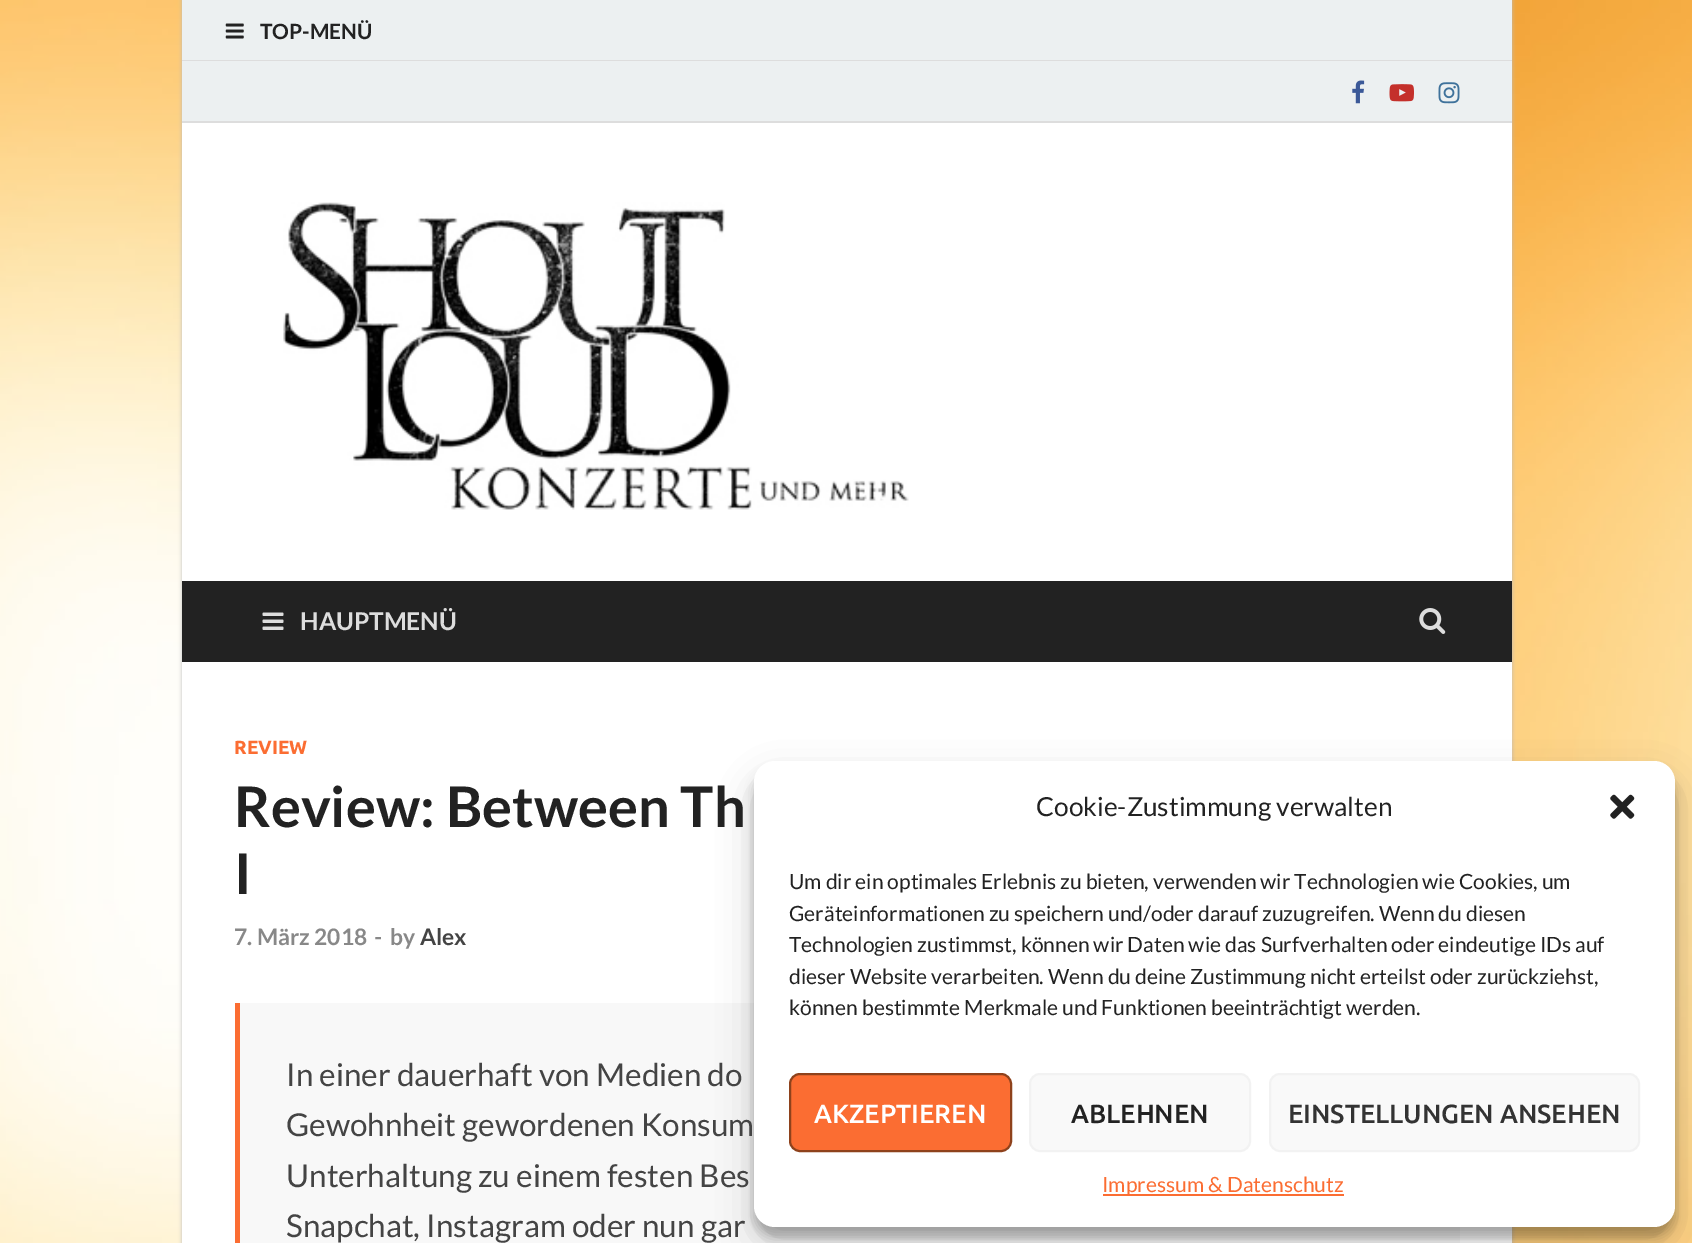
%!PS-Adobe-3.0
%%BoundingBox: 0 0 1692 1243
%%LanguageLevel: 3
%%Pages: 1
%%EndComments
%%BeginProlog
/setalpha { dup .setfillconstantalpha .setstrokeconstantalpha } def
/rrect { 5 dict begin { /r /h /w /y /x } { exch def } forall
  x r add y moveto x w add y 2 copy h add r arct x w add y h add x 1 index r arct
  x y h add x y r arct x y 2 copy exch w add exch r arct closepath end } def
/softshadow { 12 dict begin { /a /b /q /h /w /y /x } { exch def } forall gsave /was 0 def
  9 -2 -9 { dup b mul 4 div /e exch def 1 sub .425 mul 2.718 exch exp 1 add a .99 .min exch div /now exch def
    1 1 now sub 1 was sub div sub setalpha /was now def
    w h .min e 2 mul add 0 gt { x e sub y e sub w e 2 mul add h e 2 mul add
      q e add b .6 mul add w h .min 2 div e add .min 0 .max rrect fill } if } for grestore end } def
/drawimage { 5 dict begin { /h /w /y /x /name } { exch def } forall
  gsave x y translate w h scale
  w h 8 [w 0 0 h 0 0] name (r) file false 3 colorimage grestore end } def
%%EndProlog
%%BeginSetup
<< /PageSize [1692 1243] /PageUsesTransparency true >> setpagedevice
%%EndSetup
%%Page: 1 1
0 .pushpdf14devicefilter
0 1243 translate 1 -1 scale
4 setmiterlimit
1 setgray
0 0 1692 1243 rectfill
(images/1.raw) 0 0 1692 1243 drawimage
0.733 setgray
182 0 1330 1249 0 2 1 softshadow
1 setgray
182 123 1330 1120 rectfill
0.925 0.941 0.945 setrgbcolor
182 0 1330 60 rectfill
0.867 setgray
182 60 1330 1 rectfill
(images/2.raw) 225 23 19 16 drawimage
0.925 0.941 0.945 setrgbcolor
182 61 1330 60 rectfill
0.867 setgray
182 121 1330 2 rectfill
(images/3.raw) 1352 80 13 24 drawimage
(images/4.raw) 1389 84 25 18 drawimage
(images/5.raw) 1438 82 22 22 drawimage
(images/6.raw) 283 202 626 308 drawimage
0.133 setgray
182 581 1330 81 rectfill
(images/7.raw) 262 612 22 18 drawimage
(images/8.raw) 1419 608 27 26 drawimage
0.973 setgray
240 1003 1220 240 rectfill
0.984 0.427 0.196 setrgbcolor
235 1003 5 240 rectfill
0 setgray
754 772 921 465 21 5 0.23 softshadow
754 779 921 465 21 17.5 0.19 softshadow
1 setgray
754 761 921 466 21 rrect fill
(images/9.raw) 1610 794 25 25 drawimage
0.984 0.427 0.196 setrgbcolor
790 1074 221 77 10 rrect gsave fill grestore
0.557 0.259 0.11 setrgbcolor
2 setlinewidth
stroke
0.976 setgray
1030 1074 220 77 10 rrect gsave fill grestore
0.949 setgray
stroke
0.976 setgray
1270 1074 369 77 10 rrect gsave fill grestore
0.949 setgray
stroke
0.984 0.427 0.196 setrgbcolor
1103 1194 241 2 rectfill
/Lato-Bold [21 0 0 -21 0 0] selectfont
0.133 setgray
260 39 moveto (TOP-MENÜ) show
/Lato-Bold [24.5 0 0 -24.5 0 0] selectfont
0.867 setgray
300 630 moveto (HAUPTMENÜ) show
/Ubuntu-Bold [19 0 0 -19 0 0] selectfont
0.984 0.427 0.196 setrgbcolor
234 754 moveto (REVIEW) show
/Lato-Bold [56 0 0 -56 0 0] selectfont
0.133 setgray
234 827 moveto (Review: Between Th) show
234 894 moveto (I) show
/Lato-Bold [22.75 0 0 -22.75 0 0] selectfont
0.533 setgray
234 945 moveto (7. März 2018) show
374 945 moveto (-) show
390 945 moveto (by) show
0.267 setgray
420 945 moveto (Alex) show
/Lato-Regular [31.5 0 0 -31.5 0 0] selectfont
286 1086 moveto (In einer dauerhaft von Medien do) show
286 1136 moveto (Gewohnheit gewordenen Konsum) show
286 1187 moveto (Unterhaltung zu einem festen Bes) show
286 1237 moveto (Snapchat, Instagram oder nun gar) show
/Lato-Regular [26.25 0 0 -26.25 0 0] selectfont
0.133 setgray
1036 816 moveto (Cookie-Zustimmung verwalten) show
/Lato-Regular [21 0 0 -21 0 0] selectfont
789 889 moveto (Um dir ein optimales Erlebnis zu bieten, verwenden wir Technologien wie Cookies, um) show
789 921 moveto (Geräteinformationen zu speichern und/oder darauf zuzugreifen. Wenn du diesen) show
789 952 moveto (Technologien zustimmst, können wir Daten wie das Surfverhalten oder eindeutige IDs auf) show
789 984 moveto (dieser Website verarbeiten. Wenn du deine Zustimmung nicht erteilst oder zurückziehst,) show
789 1015 moveto (können bestimmte Merkmale und Funktionen beeinträchtigt werden.) show
/Ubuntu-Medium [26.25 0 0 -26.25 0 0] selectfont
1 setgray
814 1123 moveto (AKZEPTIEREN) show
0.133 setgray
1071 1123 moveto (ABLEHNEN) show
0.2 setgray
1288 1123 moveto (EINSTELLUNGEN ANSEHEN) show
/Lato-Regular [21 0 0 -21 0 0] selectfont
0.984 0.427 0.196 setrgbcolor
1102 1192 moveto (Impressum & Datenschutz) show
.poppdf14devicefilter showpage
%%EOF
